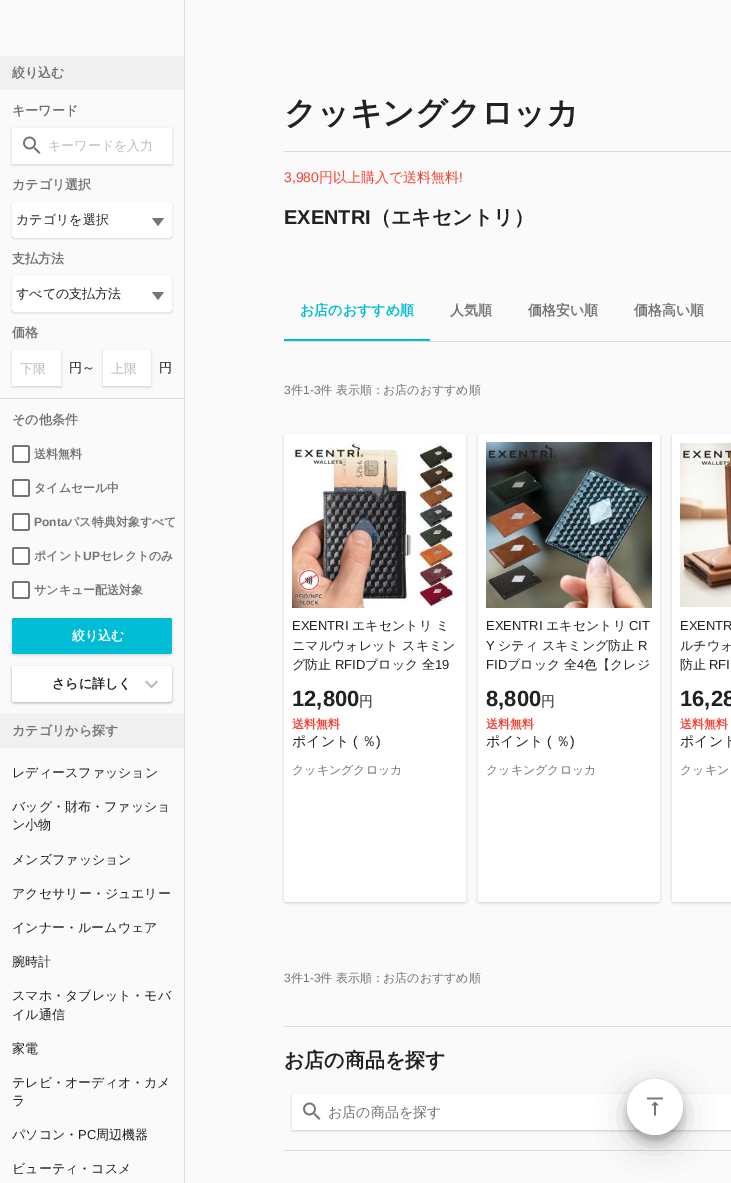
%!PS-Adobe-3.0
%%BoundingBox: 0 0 731 1183
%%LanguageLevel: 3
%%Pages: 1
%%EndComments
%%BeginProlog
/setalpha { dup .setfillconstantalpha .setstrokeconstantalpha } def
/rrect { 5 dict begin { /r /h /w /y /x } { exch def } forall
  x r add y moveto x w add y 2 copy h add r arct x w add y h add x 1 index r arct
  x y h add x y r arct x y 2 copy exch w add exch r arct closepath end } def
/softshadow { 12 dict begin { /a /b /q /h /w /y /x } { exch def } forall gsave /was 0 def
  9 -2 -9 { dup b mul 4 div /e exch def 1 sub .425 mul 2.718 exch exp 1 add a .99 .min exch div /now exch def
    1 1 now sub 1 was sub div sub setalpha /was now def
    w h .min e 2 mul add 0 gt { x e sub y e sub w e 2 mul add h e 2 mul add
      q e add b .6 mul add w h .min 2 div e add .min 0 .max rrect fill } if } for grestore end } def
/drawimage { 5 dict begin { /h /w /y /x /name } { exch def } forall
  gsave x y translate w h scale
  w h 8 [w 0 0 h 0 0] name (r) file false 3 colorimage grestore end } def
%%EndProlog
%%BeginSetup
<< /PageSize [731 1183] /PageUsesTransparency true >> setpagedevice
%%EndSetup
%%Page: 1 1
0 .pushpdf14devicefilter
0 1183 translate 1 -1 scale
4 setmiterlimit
0.98 setgray
0 0 731 1183 rectfill
0.863 setgray
184 0 1 1183 rectfill
0.941 setgray
0 56 184 34 rectfill
0 setgray
12 129 160 36 0 2 0.06 softshadow
12 129 160 36 0 1 0.12 softshadow
1 setgray
12 128 160 36 rectfill
(images/1.raw) 23 136 18 18 drawimage
12 202 160 36 rectfill
0.459 setgray
newpath 152 218 moveto 164 218 lineto 158 226 lineto closepath fill
gsave
newpath 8 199 moveto 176 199 lineto 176 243 lineto 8 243 lineto closepath 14 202 moveto 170 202 lineto 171 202 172 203 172 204 curveto 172 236 lineto 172 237 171 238 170 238 curveto 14 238 lineto 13 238 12 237 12 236 curveto 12 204 lineto 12 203 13 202 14 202 curveto closepath eoclip newpath
0 setgray
12 203 160 36 2 1 0.12 softshadow
grestore
1 setgray
12 276 160 36 rectfill
0.459 setgray
newpath 152 292 moveto 164 292 lineto 158 300 lineto closepath fill
gsave
newpath 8 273 moveto 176 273 lineto 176 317 lineto 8 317 lineto closepath 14 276 moveto 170 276 lineto 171 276 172 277 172 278 curveto 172 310 lineto 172 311 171 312 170 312 curveto 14 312 lineto 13 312 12 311 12 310 curveto 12 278 lineto 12 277 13 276 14 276 curveto closepath eoclip newpath
0 setgray
12 277 160 36 2 1 0.12 softshadow
grestore
0 setgray
12 351 49 36 0 2 0.06 softshadow
12 351 49 36 0 1 0.12 softshadow
1 setgray
12 350 49 36 rectfill
0 setgray
103 351 48 36 0 2 0.06 softshadow
103 351 48 36 0 1 0.12 softshadow
1 setgray
103 350 48 36 rectfill
0.863 setgray
0 398 184 1 rectfill
1 setgray
12 445 18 18 rectfill
(images/2.raw) 12 445 18 18 drawimage
12 479 18 18 rectfill
(images/2.raw) 12 479 18 18 drawimage
12 513 18 18 rectfill
(images/2.raw) 12 513 18 18 drawimage
12 547 18 18 rectfill
(images/2.raw) 12 547 18 18 drawimage
12 581 18 18 rectfill
(images/2.raw) 12 581 18 18 drawimage
0 setgray
12 619 160 36 2 2 0.06 softshadow
12 619 160 36 2 1 0.12 softshadow
0 0.737 0.831 setrgbcolor
12 618 160 36 2 rrect fill
0 setgray
12 667 160 36 2 2 0.06 softshadow
12 667 160 36 2 1 0.12 softshadow
1 setgray
12 666 160 36 2 rrect fill
gsave
newpath 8 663 moveto 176 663 lineto 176 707 lineto 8 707 lineto closepath 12 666 moveto 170 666 lineto 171 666 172 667 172 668 curveto 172 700 lineto 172 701 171 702 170 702 curveto 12 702 lineto closepath eoclip newpath
0 setgray
12 667 160 36 2 1 0.12 softshadow
grestore
0.741 setgray
newpath 158 682 moveto 151.5 688.5 lineto 151.5 685.5 lineto 156.5 680.5 lineto closepath fill
0.26 setalpha
0 setgray
newpath 151.5 688.5 moveto 145 682 lineto 146.5 680.5 lineto 151.5 685.5 lineto closepath fill
1 setalpha
0.941 setgray
0 714 184 34 rectfill
0.863 setgray
284 151 447 1 rectfill
284 341 447 1 rectfill
0 0.737 0.831 setrgbcolor
284 339 146 2 rectfill
0 setgray
284 435 182 468 2 2 0.06 softshadow
284 435 182 468 2 1 0.12 softshadow
1 setgray
284 434 182 468 2 rrect fill
(images/3.raw) 292 442 166 166 drawimage
0 setgray
478 435 182 468 2 2 0.06 softshadow
478 435 182 468 2 1 0.12 softshadow
1 setgray
478 434 182 468 2 rrect fill
(images/4.raw) 486 442 166 166 drawimage
0 setgray
672 435 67 468 2 2 0.06 softshadow
672 435 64 468 2 1 0.12 softshadow
1 setgray
672 434 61 468 2 rrect fill
(images/5.raw) 680 443 51 164 drawimage
0.863 setgray
284 1026 447 1 rectfill
0 setgray
292 1095 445 36 0 2 0.06 softshadow
292 1095 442 36 0 1 0.12 softshadow
1 setgray
292 1094 439 36 rectfill
(images/1.raw) 303 1102 18 18 drawimage
0.863 setgray
284 1150 447 1 rectfill
0 setgray
627 1089 56 56 28 15 0.19 softshadow
627 1085 56 56 28 5 0.23 softshadow
1 setgray
newpath 655 1107 28 0 360 arc closepath fill
(images/6.raw) 647 1097 16 19 drawimage
/WenQuanYiZenHei-Bold [13 0 0 -13 0 0] selectfont
0.451 setgray
12 77 moveto (絞り込む) show
12 115 moveto (キーワード) show
/WenQuanYiZenHei-Medium [13 0 0 -13 0 0] selectfont
0.741 setgray
48 150 moveto (キーワードを入力) show
/WenQuanYiZenHei-Bold [13 0 0 -13 0 0] selectfont
0.451 setgray
12 189 moveto (カテゴリ選択) show
/WenQuanYiZenHei-Medium [13 0 0 -13 0 0] selectfont
0.129 setgray
16 224 moveto (カテゴリを選択) show
/WenQuanYiZenHei-Bold [13 0 0 -13 0 0] selectfont
0.451 setgray
12 263 moveto (支払方法) show
/WenQuanYiZenHei-Medium [13 0 0 -13 0 0] selectfont
0.129 setgray
16 298 moveto (すべての支払方法) show
/WenQuanYiZenHei-Bold [13 0 0 -13 0 0] selectfont
0.451 setgray
12 337 moveto (価格) show
/WenQuanYiZenHei-Medium [13 0 0 -13 0 0] selectfont
0.741 setgray
20 373 moveto (下限) show
0.129 setgray
69 372 moveto (円～) show
0.741 setgray
111 373 moveto (上限) show
0.129 setgray
159 372 moveto (円) show
/WenQuanYiZenHei-Bold [13 0 0 -13 0 0] selectfont
0.451 setgray
12 424 moveto (その他条件) show
/WenQuanYiZenHei-Bold [12 0 0 -12 0 0] selectfont
34 458 moveto (送料無料) show
34 492 moveto (タイムセール中) show
/LiberationSans-Bold [12 0 0 -12 0 0] selectfont
34 526 moveto (Ponta) show
/WenQuanYiZenHei-Bold [12 0 0 -12 0 0] selectfont
67 526 moveto (パス特典対象すべて) show
34 560 moveto (ポイント) show
/LiberationSans-Bold [12 0 0 -12 0 0] selectfont
83 560 moveto (UP) show
/WenQuanYiZenHei-Bold [12 0 0 -12 0 0] selectfont
100 560 moveto (セレクトのみ) show
34 594 moveto (サンキュー配送対象) show
/WenQuanYiZenHei-Bold [13 0 0 -13 0 0] selectfont
1 setgray
72 640 moveto (絞り込む) show
0.129 setgray
52 688 moveto (さらに詳しく) show
0.451 setgray
12 735 moveto (カテゴリから探す) show
/WenQuanYiZenHei-Medium [13 0 0 -13 0 0] selectfont
0.129 setgray
12 777 moveto (レディースファッション) show
12 811 moveto (バッグ・財布・ファッショ) show
12 829 moveto (ン小物) show
12 864 moveto (メンズファッション) show
12 898 moveto (アクセサリー・ジュエリー) show
12 932 moveto (インナー・ルームウェア) show
12 966 moveto (腕時計) show
12 1000 moveto (スマホ・タブレット・モバ) show
12 1019 moveto (イル通信) show
12 1053 moveto (家電) show
12 1087 moveto (テレビ・オーディオ・カメ) show
12 1105 moveto (ラ) show
12 1139 moveto (パソコン・) show
/LiberationSans-Regular [13 0 0 -13 0 0] selectfont
78 1139 moveto (PC) show
/WenQuanYiZenHei-Medium [13 0 0 -13 0 0] selectfont
96 1139 moveto (周辺機器) show
12 1173 moveto (ビューティ・コスメ) show
/WenQuanYiZenHei-Bold [32 0 0 -32 0 0] selectfont
284 124 moveto (クッキングクロッカ) show
/LiberationSans-Regular [14 0 0 -14 0 0] selectfont
0.957 0.263 0.212 setrgbcolor
284 182 moveto (3,980) show
/WenQuanYiZenHei-Medium [14 0 0 -14 0 0] selectfont
319 182 moveto (円以上購入で送料無料) show
/LiberationSans-Regular [14 0 0 -14 0 0] selectfont
459 182 moveto (!) show
/LiberationSans-Bold [20 0 0 -20 0 0] selectfont
0.129 setgray
284 224 moveto (EXENTRI) show
/WenQuanYiZenHei-Bold [20 0 0 -20 0 0] selectfont
371 224 moveto (（エキセントリ）) show
/WenQuanYiZenHei-Bold [14 0 0 -14 0 0] selectfont
0 0.737 0.831 setrgbcolor
300 315 moveto (お店のおすすめ順) show
0.451 setgray
450 315 moveto (人気順) show
528 315 moveto (価格安い順) show
634 315 moveto (価格高い順) show
/LiberationSans-Regular [12 0 0 -12 0 0] selectfont
284 394 moveto (3) show
/WenQuanYiZenHei-Medium [12 0 0 -12 0 0] selectfont
291 394 moveto (件) show
/LiberationSans-Regular [12 0 0 -12 0 0] selectfont
303 394 moveto (1-3) show
/WenQuanYiZenHei-Medium [12 0 0 -12 0 0] selectfont
320 394 moveto (件 表示順：) show
383 394 moveto (お店のおすすめ順) show
/LiberationSans-Regular [13 0 0 -13 0 0] selectfont
0.129 setgray
292 630 moveto (EXENTRI) show
/WenQuanYiZenHei-Medium [13 0 0 -13 0 0] selectfont
352 630 moveto (エキセントリ ミ) show
292 650 moveto (ニマルウォレット スキミン) show
292 669 moveto (グ防止) show
/LiberationSans-Regular [13 0 0 -13 0 0] selectfont
335 669 moveto (RFID) show
/WenQuanYiZenHei-Medium [13 0 0 -13 0 0] selectfont
365 669 moveto (ブロック 全) show
/LiberationSans-Regular [13 0 0 -13 0 0] selectfont
435 669 moveto (19) show
/LiberationSans-Bold [22 0 0 -22 0 0] selectfont
292 706 moveto (12,800) show
/WenQuanYiZenHei-Medium [14 0 0 -14 0 0] selectfont
359 706 moveto (円) show
/WenQuanYiZenHei-Bold [12 0 0 -12 0 0] selectfont
0.957 0.263 0.212 setrgbcolor
292 728 moveto (送料無料) show
/WenQuanYiZenHei-Medium [14 0 0 -14 0 0] selectfont
0.129 setgray
292 746 moveto (ポイント) show
/LiberationSans-Regular [14 0 0 -14 0 0] selectfont
353 746 moveto (\() show
/WenQuanYiZenHei-Medium [14 0 0 -14 0 0] selectfont
362 746 moveto (％) show
/LiberationSans-Regular [14 0 0 -14 0 0] selectfont
376 746 moveto (\)) show
/WenQuanYiZenHei-Medium [12 0 0 -12 0 0] selectfont
0.451 setgray
292 774 moveto (クッキングクロッカ) show
/LiberationSans-Regular [13 0 0 -13 0 0] selectfont
0.129 setgray
486 630 moveto (EXENTRI) show
/WenQuanYiZenHei-Medium [13 0 0 -13 0 0] selectfont
546 630 moveto (エキセントリ) show
/LiberationSans-Regular [13 0 0 -13 0 0] selectfont
629 630 moveto (CIT) show
486 650 moveto (Y) show
/WenQuanYiZenHei-Medium [13 0 0 -13 0 0] selectfont
498 650 moveto (シティ スキミング防止) show
/LiberationSans-Regular [13 0 0 -13 0 0] selectfont
638 650 moveto (R) show
486 669 moveto (FID) show
/WenQuanYiZenHei-Medium [13 0 0 -13 0 0] selectfont
507 669 moveto (ブロック 全) show
/LiberationSans-Regular [13 0 0 -13 0 0] selectfont
577 669 moveto (4) show
/WenQuanYiZenHei-Medium [13 0 0 -13 0 0] selectfont
584 669 moveto (色【クレジ) show
/LiberationSans-Bold [22 0 0 -22 0 0] selectfont
486 706 moveto (8,800) show
/WenQuanYiZenHei-Medium [14 0 0 -14 0 0] selectfont
541 706 moveto (円) show
/WenQuanYiZenHei-Bold [12 0 0 -12 0 0] selectfont
0.957 0.263 0.212 setrgbcolor
486 728 moveto (送料無料) show
/WenQuanYiZenHei-Medium [14 0 0 -14 0 0] selectfont
0.129 setgray
486 746 moveto (ポイント) show
/LiberationSans-Regular [14 0 0 -14 0 0] selectfont
547 746 moveto (\() show
/WenQuanYiZenHei-Medium [14 0 0 -14 0 0] selectfont
556 746 moveto (％) show
/LiberationSans-Regular [14 0 0 -14 0 0] selectfont
570 746 moveto (\)) show
/WenQuanYiZenHei-Medium [12 0 0 -12 0 0] selectfont
0.451 setgray
486 774 moveto (クッキングクロッカ) show
/LiberationSans-Regular [13 0 0 -13 0 0] selectfont
0.129 setgray
680 630 moveto (EXENTR) show
/WenQuanYiZenHei-Medium [13 0 0 -13 0 0] selectfont
680 650 moveto (ルチウォ) show
680 669 moveto (防止) show
/LiberationSans-Regular [13 0 0 -13 0 0] selectfont
709 669 moveto (RFI) show
/LiberationSans-Bold [22 0 0 -22 0 0] selectfont
680 706 moveto (16,28) show
/WenQuanYiZenHei-Bold [12 0 0 -12 0 0] selectfont
0.957 0.263 0.212 setrgbcolor
680 728 moveto (送料無料) show
/WenQuanYiZenHei-Medium [14 0 0 -14 0 0] selectfont
0.129 setgray
680 746 moveto (ポイント) show
/WenQuanYiZenHei-Medium [12 0 0 -12 0 0] selectfont
0.451 setgray
680 774 moveto (クッキン) show
/LiberationSans-Regular [12 0 0 -12 0 0] selectfont
284 982 moveto (3) show
/WenQuanYiZenHei-Medium [12 0 0 -12 0 0] selectfont
291 982 moveto (件) show
/LiberationSans-Regular [12 0 0 -12 0 0] selectfont
303 982 moveto (1-3) show
/WenQuanYiZenHei-Medium [12 0 0 -12 0 0] selectfont
320 982 moveto (件 表示順：) show
383 982 moveto (お店のおすすめ順) show
/WenQuanYiZenHei-Bold [20 0 0 -20 0 0] selectfont
0.129 setgray
284 1067 moveto (お店の商品を探す) show
/WenQuanYiZenHei-Medium [14 0 0 -14 0 0] selectfont
0.451 setgray
328 1117 moveto (お店の商品を探す) show
.poppdf14devicefilter showpage
%%EOF
